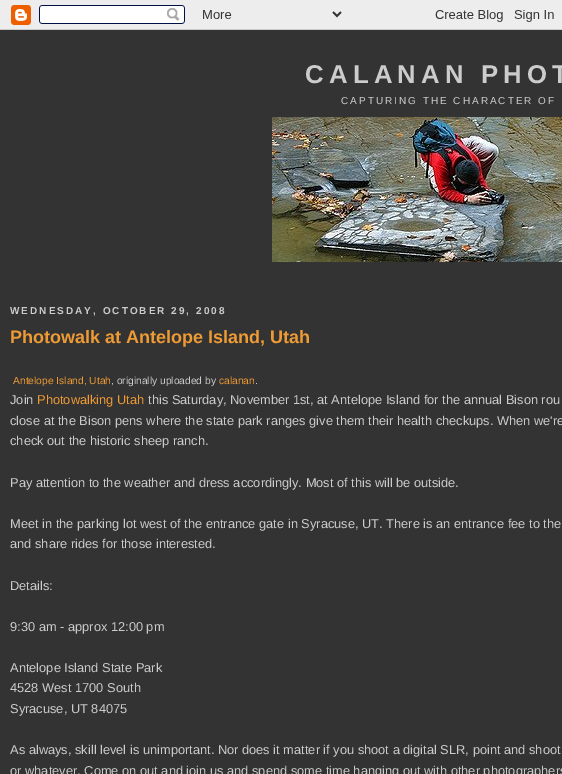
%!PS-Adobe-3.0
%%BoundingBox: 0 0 562 774
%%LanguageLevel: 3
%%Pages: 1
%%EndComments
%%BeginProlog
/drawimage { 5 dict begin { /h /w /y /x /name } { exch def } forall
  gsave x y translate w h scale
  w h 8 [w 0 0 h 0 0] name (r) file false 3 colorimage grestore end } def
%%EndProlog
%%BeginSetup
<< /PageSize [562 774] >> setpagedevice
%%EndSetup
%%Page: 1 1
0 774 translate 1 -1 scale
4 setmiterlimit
0.2 setgray
0 0 562 774 rectfill
(images/1.raw) 0 0 562 30 drawimage
(images/2.raw) 272 117 290 145 drawimage
/LiberationSans-Bold [25.75 0 0 -25.75 0 0] selectfont
0.8 setgray
305 83 moveto 5.2 0 (CALANAN PHOT) ashow
/LiberationSans-Regular [10 0 0 -10 0 0] selectfont
341 104 moveto 2 0 (CAPTURING THE CHARACTER OF) ashow
/LiberationSans-Bold [10 0 0 -10 0 0] selectfont
10 314 moveto 2 0 (WEDNESDAY, OCTOBER 29, 2008) ashow
/LiberationSans-Bold [18 0 0 -18 0 0] selectfont
0.937 0.608 0.208 setrgbcolor
10 343 moveto (Photowalk at Antelope Island, Utah) show
/LiberationSans-Regular [10.25 0 0 -10.25 0 0] selectfont
13 384 moveto (Antelope Island, Utah) show
0.8 setgray
111 384 moveto (, originally uploaded by) show
0.937 0.608 0.208 setrgbcolor
219 384 moveto (calanan) show
0.8 setgray
255 384 moveto (.) show
/LiberationSans-Regular [12.85 0 0 -12.85 0 0] selectfont
10 404 moveto (Join) show
0.937 0.608 0.208 setrgbcolor
37 404 moveto (Photowalking Utah) show
0.8 setgray
148 404 moveto (this Saturday, November 1st, at Antelope Island for the annual Bison rou) show
10 425 moveto (close at the Bison pens where the state park ranges give them their health checkups. When we're) show
10 445 moveto (check out the historic sheep ranch.) show
10 487 moveto (Pay attention to the weather and dress accordingly. Most of this will be outside.) show
10 528 moveto (Meet in the parking lot west of the entrance gate in Syracuse, UT. There is an entrance fee to the) show
10 548 moveto (and share rides for those interested.) show
10 590 moveto (Details:) show
10 631 moveto (9:30 am - approx 12:00 pm) show
10 672 moveto (Antelope Island State Park) show
10 692 moveto (4528 West 1700 South) show
10 713 moveto (Syracuse, UT 84075) show
10 754 moveto (As always, skill level is unimportant. Nor does it matter if you shoot a digital SLR, point and shoot) show
10 775 moveto (or whatever. Come on out and join us and spend some time hanging out with other photographers) show
showpage
%%EOF
